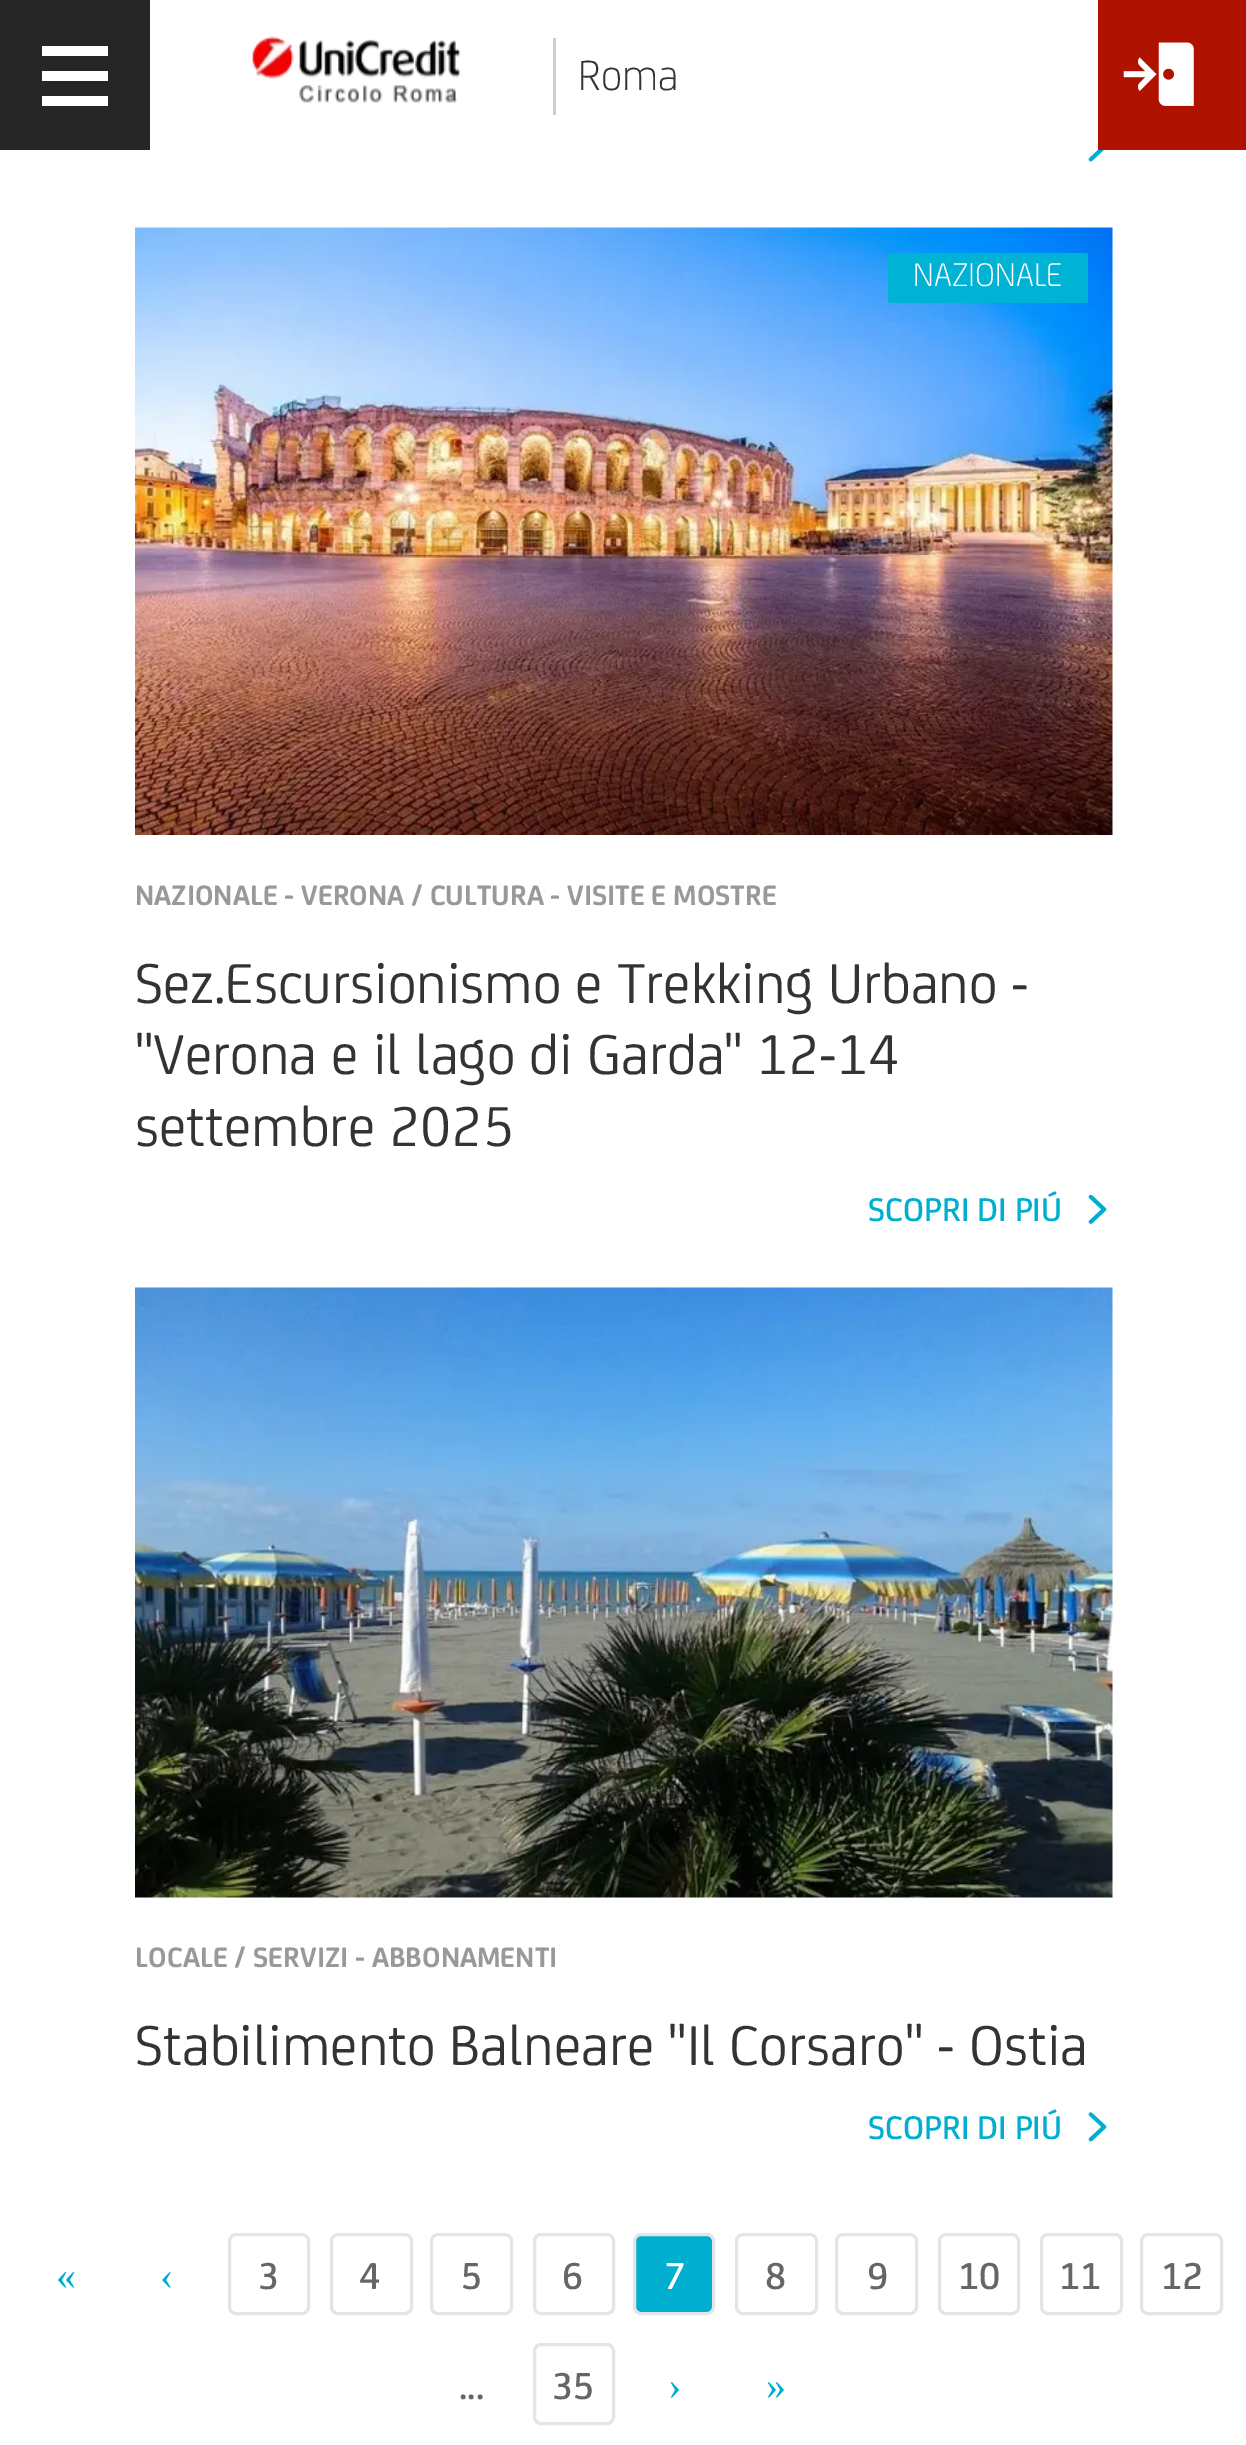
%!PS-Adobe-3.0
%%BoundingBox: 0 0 1246 2445
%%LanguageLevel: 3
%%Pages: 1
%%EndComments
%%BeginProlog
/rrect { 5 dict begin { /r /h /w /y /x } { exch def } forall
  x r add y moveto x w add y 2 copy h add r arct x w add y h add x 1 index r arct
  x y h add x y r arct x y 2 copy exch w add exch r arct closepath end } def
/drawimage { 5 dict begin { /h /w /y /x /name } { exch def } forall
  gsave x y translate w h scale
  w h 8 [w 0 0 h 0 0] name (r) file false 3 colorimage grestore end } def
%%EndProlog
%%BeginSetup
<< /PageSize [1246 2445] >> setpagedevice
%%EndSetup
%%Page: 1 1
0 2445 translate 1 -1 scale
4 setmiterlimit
1 setgray
0 0 1246 2445 rectfill
0.149 setgray
0 0 150 150 rectfill
1 setgray
newpath 42 96 moveto 108 96 lineto 108 106 lineto 42 106 lineto closepath 42 71 moveto 108 71 lineto 108 81 lineto 42 81 lineto closepath 42 46 moveto 108 46 lineto 108 56 lineto 42 56 lineto closepath fill
(images/1.raw) 252 36 209 67 drawimage
0.8 setgray
553 38 3 77 rectfill
0.69 0.071 0 setrgbcolor
1098 0 148 150 rectfill
(images/2.raw) 1123 42 71 64 drawimage
(images/3.raw) 1088 150 16 12 drawimage
(images/4.raw) 135 227 978 608 drawimage
0 0.698 0.831 setrgbcolor
888 253 200 50 2.5 rrect fill
(images/5.raw) 1088 1194 19 30 drawimage
(images/6.raw) 135 1287 978 611 drawimage
(images/7.raw) 1088 2112 19 30 drawimage
0.898 setgray
3 setlinewidth
229.5 2234.5 79 79 6.5 rrect stroke
331.5 2234.5 80 79 6.5 rrect stroke
431.5 2234.5 80 79 6.5 rrect stroke
534.5 2234.5 79 79 6.5 rrect stroke
0 0.686 0.816 setrgbcolor
634.5 2234.5 79 79 6.5 rrect gsave fill grestore
0.898 setgray
stroke
736.5 2234.5 80 79 6.5 rrect stroke
836.5 2234.5 80 79 6.5 rrect stroke
939.5 2234.5 79 79 6.5 rrect stroke
1041.5 2234.5 80 79 6.5 rrect stroke
1141.5 2234.5 80 79 6.5 rrect stroke
534.5 2344.5 79 79 6.5 rrect stroke
/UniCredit-Light [45 0 0 -45 0 0] selectfont
0.2 setgray
578 90 moveto (Roma) show
/UniCredit-Light [35 0 0 -35 0 0] selectfont
1 setgray
913 286 moveto (NAZIONALE) show
/UniCredit-Bold [30 0 0 -30 0 0] selectfont
0.6 setgray
135 905 moveto (NAZIONALE - VERONA / CULTURA - VISITE E MOSTRE) show
/UniCredit-Regular [60 0 0 -60 0 0] selectfont
0.2 setgray
135 1003 moveto (Sez.Escursionismo e Trekking Urbano -) show
135 1074 moveto ("Verona e il lago di Garda" 12-14) show
135 1146 moveto (settembre 2025) show
/UniCredit-Medium [35 0 0 -35 0 0] selectfont
0 0.686 0.816 setrgbcolor
868 1221 moveto (SCOPRI DI PIÚ) show
/UniCredit-Bold [30 0 0 -30 0 0] selectfont
0.6 setgray
135 1967 moveto (LOCALE / SERVIZI - ABBONAMENTI) show
/UniCredit-Regular [60 0 0 -60 0 0] selectfont
0.2 setgray
135 2065 moveto (Stabilimento Balneare "Il Corsaro" - Ostia) show
/UniCredit-Medium [35 0 0 -35 0 0] selectfont
0 0.686 0.816 setrgbcolor
868 2139 moveto (SCOPRI DI PIÚ) show
/LiberationSerif-Regular [40 0 0 -40 0 0] selectfont
56 2289 moveto («) show
160 2289 moveto (‹) show
/UniCredit-Medium [40 0 0 -40 0 0] selectfont
0.4 setgray
258 2289 moveto (3) show
359 2289 moveto (4) show
461 2289 moveto (5) show
562 2289 moveto (6) show
1 setgray
664 2289 moveto (7) show
0.4 setgray
765 2289 moveto (8) show
867 2289 moveto (9) show
958 2289 moveto (10) show
1059 2289 moveto (11) show
1161 2289 moveto (12) show
459 2399 moveto (...) show
552 2399 moveto (35) show
/LiberationSerif-Regular [40 0 0 -40 0 0] selectfont
0 0.686 0.816 setrgbcolor
668 2399 moveto (›) show
766 2399 moveto (») show
showpage
%%EOF
